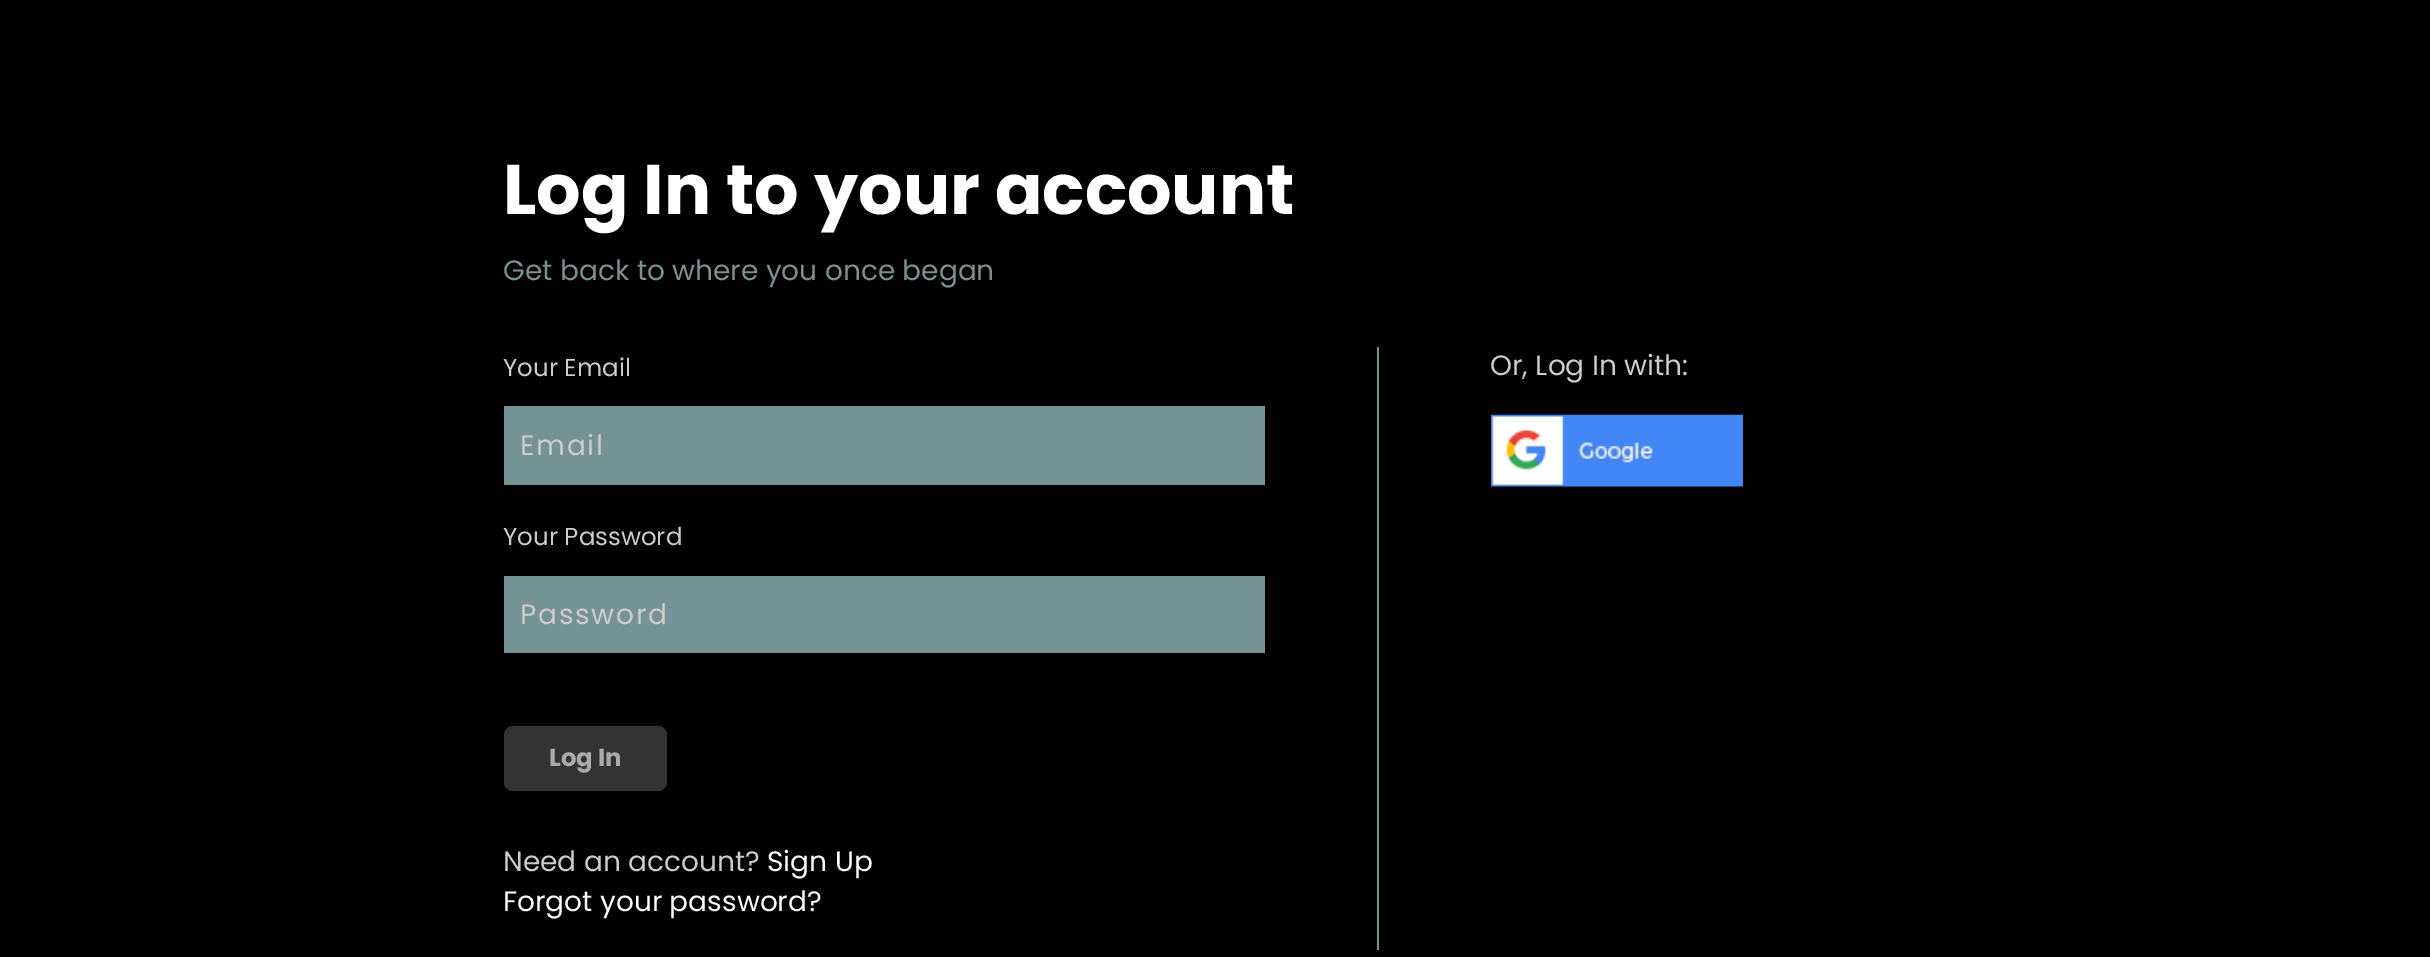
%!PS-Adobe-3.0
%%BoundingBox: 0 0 2430 957
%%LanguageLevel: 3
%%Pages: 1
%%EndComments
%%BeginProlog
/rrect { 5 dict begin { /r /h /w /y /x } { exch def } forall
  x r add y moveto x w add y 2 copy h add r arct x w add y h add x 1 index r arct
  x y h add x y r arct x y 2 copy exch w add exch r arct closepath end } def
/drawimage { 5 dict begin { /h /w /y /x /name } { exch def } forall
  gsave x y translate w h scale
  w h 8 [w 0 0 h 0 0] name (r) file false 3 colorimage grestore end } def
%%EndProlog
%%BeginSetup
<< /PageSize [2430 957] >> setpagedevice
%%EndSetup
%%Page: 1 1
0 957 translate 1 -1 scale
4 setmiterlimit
0.004 setgray
0 0 2430 957 rectfill
0.463 0.576 0.576 setrgbcolor
1377 347 2 603 rectfill
504 406 761 79 rectfill
504 576 761 77 rectfill
0.2 setgray
504 726 163 65 9 rrect fill
(images/1.raw) 1491 414 252 73 drawimage
/Poppins-Bold [70 0 0 -70 0 0] selectfont
1 setgray
503 214 moveto (Log In to your account) show
/Poppins-Regular [28 0 0 -28 0 0] selectfont
0.463 0.576 0.576 setrgbcolor
503 280 moveto (Get back to where you once began) show
/Poppins-Regular [24.5 0 0 -24.5 0 0] selectfont
0.8 setgray
503 376 moveto (Your Email) show
/Poppins-Regular [28 0 0 -28 0 0] selectfont
520 455 moveto 1.75 0 (Email) ashow
/Poppins-Regular [24.5 0 0 -24.5 0 0] selectfont
503 545 moveto (Your Password) show
/Poppins-Regular [28 0 0 -28 0 0] selectfont
520 624 moveto 1.75 0 (Password) ashow
/Poppins-Bold [24.5 0 0 -24.5 0 0] selectfont
0.667 setgray
549 766 moveto (Log In) show
/Poppins-Regular [28 0 0 -28 0 0] selectfont
0.8 setgray
503 871 moveto (Need an account?) show
1 setgray
767 871 moveto (Sign Up) show
503 911 moveto (Forgot your password?) show
0.8 setgray
1490 375 moveto (Or, Log In with:) show
showpage
%%EOF
